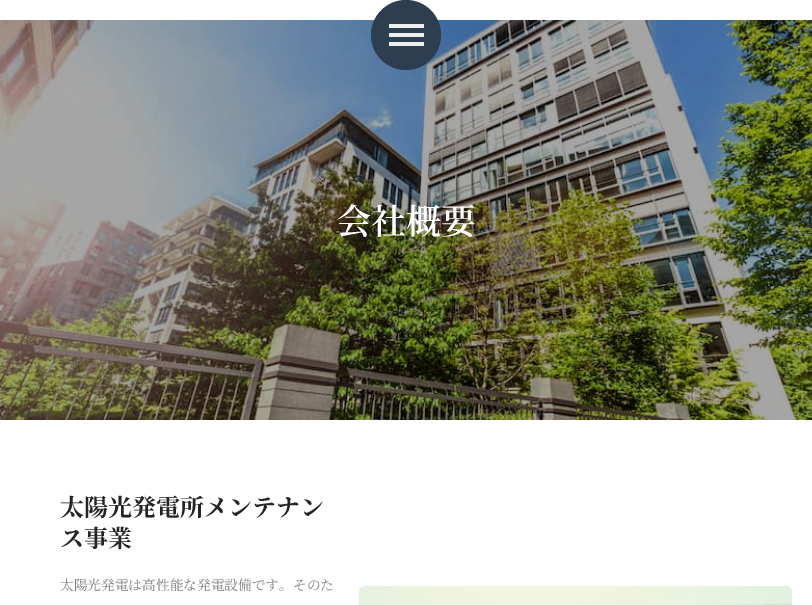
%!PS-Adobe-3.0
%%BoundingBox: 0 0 812 605
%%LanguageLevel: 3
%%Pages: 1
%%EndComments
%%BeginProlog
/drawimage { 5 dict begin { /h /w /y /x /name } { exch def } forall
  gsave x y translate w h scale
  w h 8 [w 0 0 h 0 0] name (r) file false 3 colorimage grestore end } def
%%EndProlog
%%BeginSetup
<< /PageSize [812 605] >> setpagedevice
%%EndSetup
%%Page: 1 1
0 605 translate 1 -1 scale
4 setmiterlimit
1 setgray
0 0 812 605 rectfill
(images/1.raw) 0 20 812 400 drawimage
0.173 0.243 0.314 setrgbcolor
newpath 406 35 35 0 360 arc closepath fill
0.925 0.941 0.945 setrgbcolor
389 24 35 4 rectfill
389 33 35 4 rectfill
389 42 35 4 rectfill
(images/2.raw) 359 586 433 19 drawimage
/NotoSerifJP-SemiBold [35 0 0 -35 0 0] selectfont
1 setgray
336 234 moveto (会社概要) show
/NotoSerifJP-Bold [24 0 0 -24 0 0] selectfont
0.141 setgray
60 516 moveto (太陽光発電所メンテナン) show
60 547 moveto (ス事業) show
/NotoSerifJP-Regular [13.7 0 0 -13.7 0 0] selectfont
0.478 setgray
60 590 moveto (太陽光発電は高性能な発電設備です。そのた) show
showpage
%%EOF
